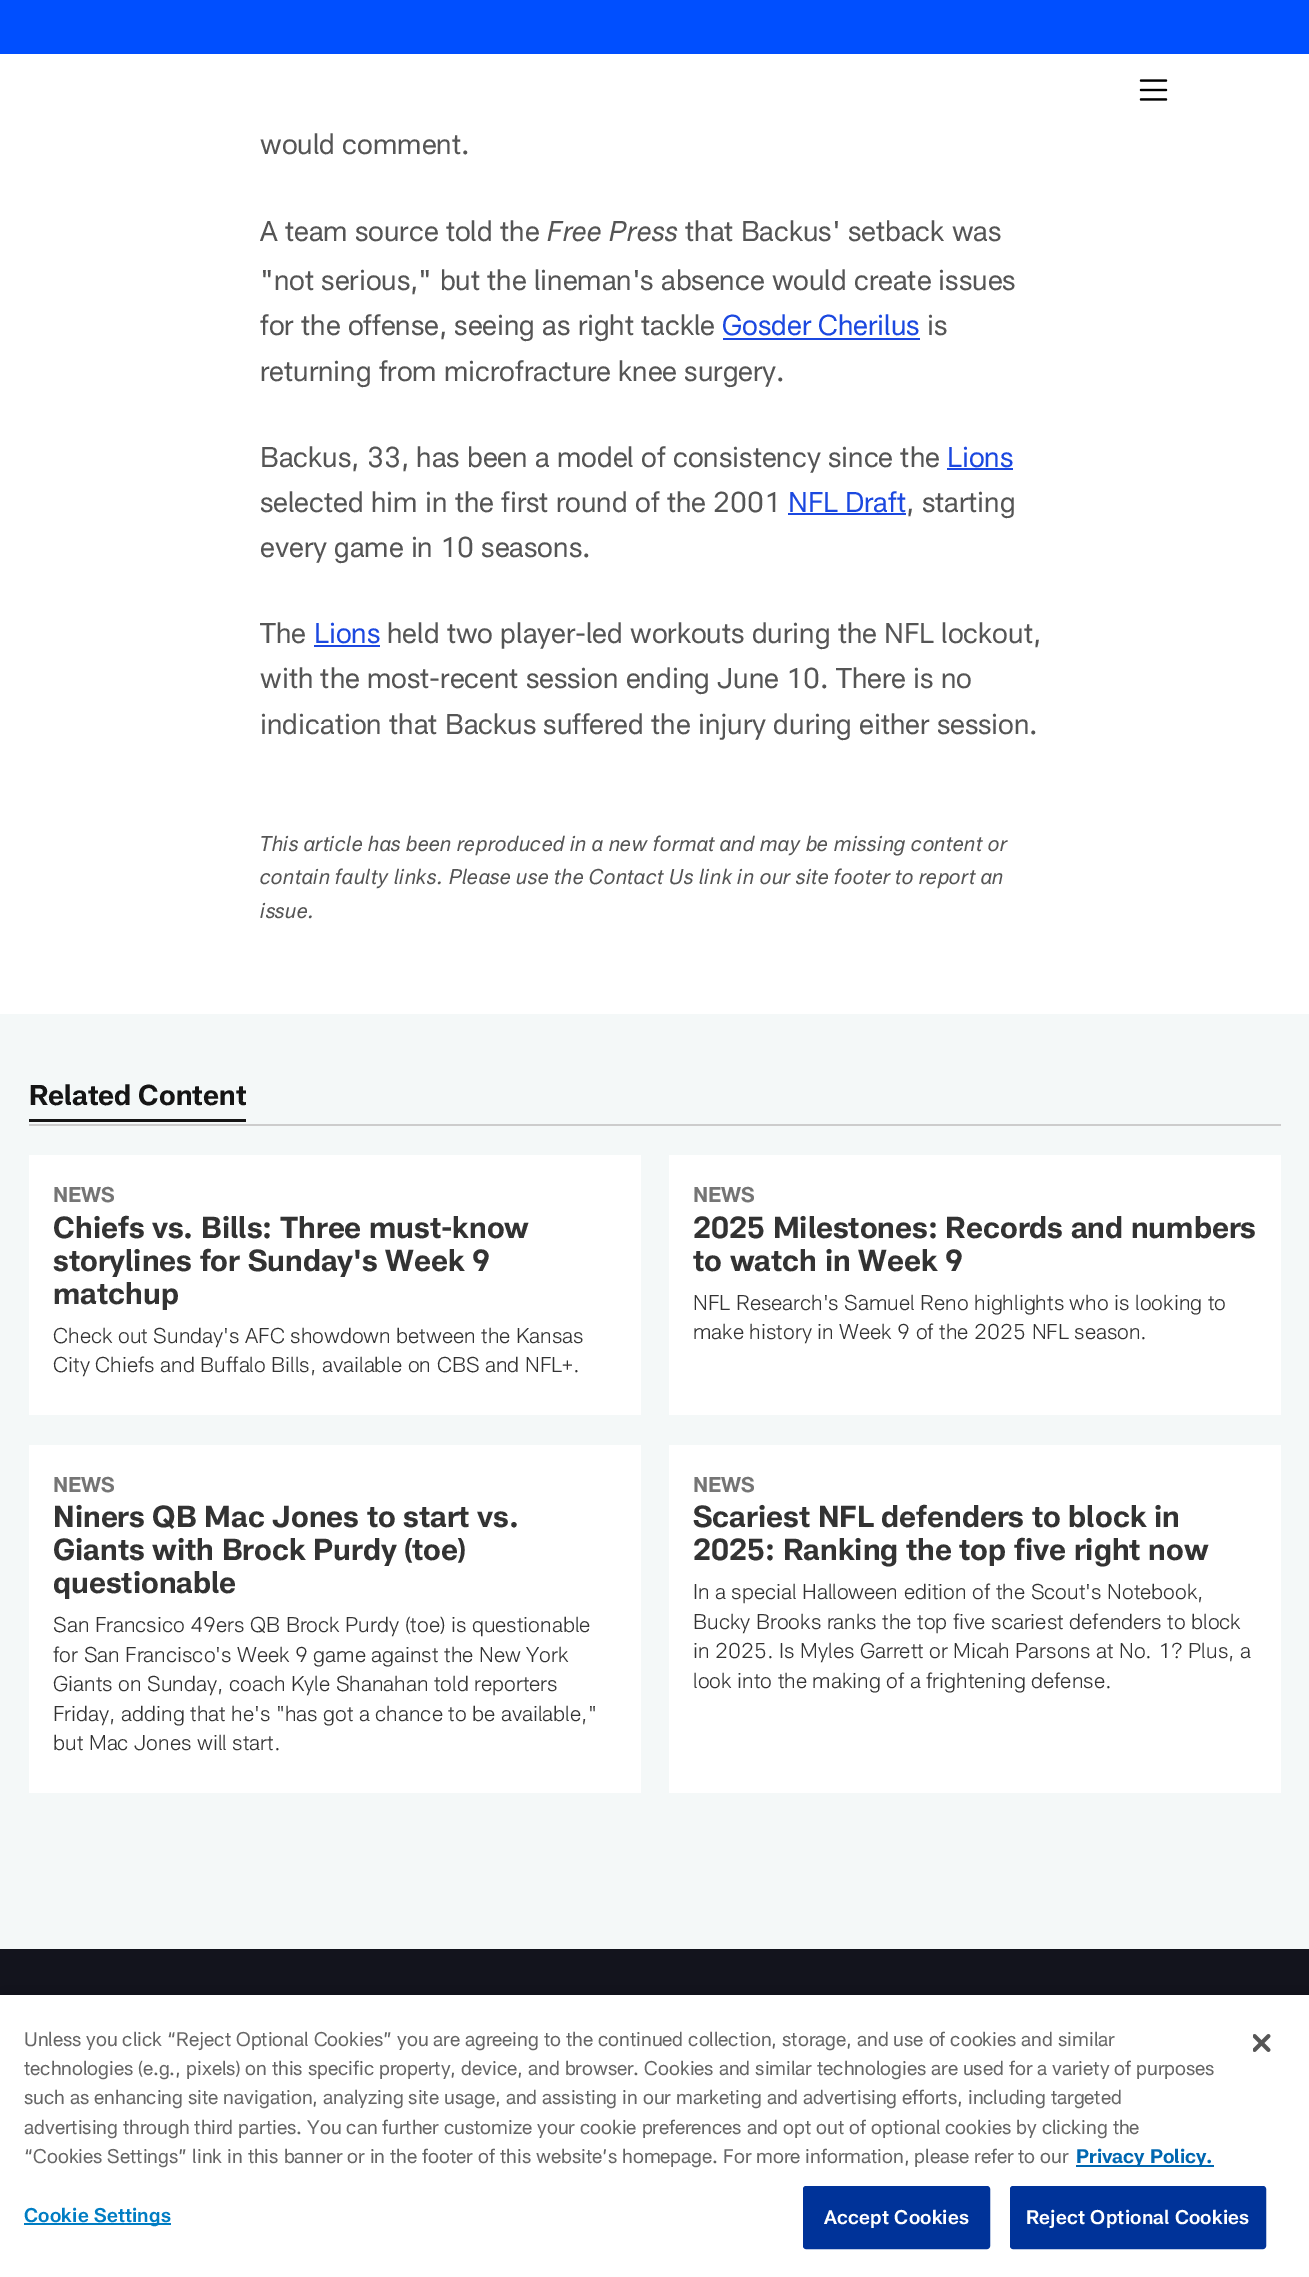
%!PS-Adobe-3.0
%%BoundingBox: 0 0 1309 2277
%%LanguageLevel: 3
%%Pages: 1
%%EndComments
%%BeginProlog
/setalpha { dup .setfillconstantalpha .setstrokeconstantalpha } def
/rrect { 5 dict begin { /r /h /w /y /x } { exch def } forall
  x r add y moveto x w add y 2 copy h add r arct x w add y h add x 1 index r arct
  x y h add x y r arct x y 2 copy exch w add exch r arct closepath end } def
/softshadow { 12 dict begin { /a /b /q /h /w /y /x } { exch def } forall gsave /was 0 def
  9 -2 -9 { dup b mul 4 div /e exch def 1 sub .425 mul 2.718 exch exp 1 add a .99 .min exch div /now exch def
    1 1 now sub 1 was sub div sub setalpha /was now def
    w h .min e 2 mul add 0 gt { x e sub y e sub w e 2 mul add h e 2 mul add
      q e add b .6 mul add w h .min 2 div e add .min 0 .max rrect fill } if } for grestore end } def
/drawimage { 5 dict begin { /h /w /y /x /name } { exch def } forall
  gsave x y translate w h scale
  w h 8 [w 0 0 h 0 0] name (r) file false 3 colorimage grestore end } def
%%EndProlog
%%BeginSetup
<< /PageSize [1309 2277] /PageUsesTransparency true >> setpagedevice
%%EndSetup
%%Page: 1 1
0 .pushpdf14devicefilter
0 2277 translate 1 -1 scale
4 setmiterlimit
0.957 0.973 0.973 setrgbcolor
0 0 1309 2277 rectfill
0 0.31 1 setrgbcolor
0 0 1309 54 rectfill
1 setgray
0 54 1309 960 rectfill
(images/1.raw) 1139 79 29 22 drawimage
0.106 0.282 0.878 setrgbcolor
723 338 197 2 rectfill
947 468 66 2 rectfill
788 513 118 2 rectfill
314 645 66 2 rectfill
0.8 setgray
29 1124 1252 2 rectfill
0.082 setgray
29 1119 217 3 rectfill
1 setgray
29 1155 612 260 rectfill
669 1155 612 260 rectfill
29 1445 612 348 rectfill
669 1445 612 348 rectfill
0.075 0.078 0.114 setrgbcolor
0 1949 1309 46 rectfill
0 setgray
0 1995 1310 282 0 13.5 0.2 softshadow
1 setgray
0 1995 1309 282 rectfill
0 0.404 0.694 setrgbcolor
1076 2165 138 2 rectfill
0 0.49 0.765 setrgbcolor
24 2223 147 2 rectfill
0 0.2 0.6 setrgbcolor
804 2187 185 61 2 rrect gsave fill grestore
2 setlinewidth
stroke
1011 2187 254 61 2 rrect gsave fill grestore
stroke
(images/2.raw) 1253 2034 18 18 drawimage
/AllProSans-Regular [28.25 0 0 -28.25 0 0] selectfont
0.333 setgray
260 154 moveto (would comment.) show
260 241 moveto (A team source told the) show
/AllProSans-Italic [28.25 0 0 -28.25 0 0] selectfont
547 241 moveto (Free Press) show
/AllProSans-Regular [28.25 0 0 -28.25 0 0] selectfont
685 241 moveto (that Backus' setback was) show
260 290 moveto ("not serious," but the lineman's absence would create issues) show
260 335 moveto (for the offense, seeing as right tackle) show
0.106 0.282 0.878 setrgbcolor
722 335 moveto (Gosder Cherilus) show
0.333 setgray
927 335 moveto (is) show
260 381 moveto (returning from microfracture knee surgery.) show
260 467 moveto (Backus, 33, has been a model of consistency since the) show
0.106 0.282 0.878 setrgbcolor
947 467 moveto (Lions) show
0.333 setgray
260 512 moveto (selected him in the first round of the 2001) show
0.106 0.282 0.878 setrgbcolor
788 512 moveto (NFL Draft) show
0.333 setgray
906 512 moveto (, starting) show
260 557 moveto (every game in 10 seasons.) show
260 643 moveto (The) show
0.106 0.282 0.878 setrgbcolor
314 643 moveto (Lions) show
0.333 setgray
387 643 moveto (held two player-led workouts during the NFL lockout,) show
260 688 moveto (with the most-recent session ending June 10. There is no) show
260 734 moveto (indication that Backus suffered the injury during either session.) show
/AllProSans-Italic [21 0 0 -21 0 0] selectfont
260 851 moveto (This article has been reproduced in a new format and may be missing content or) show
260 884 moveto (contain faulty links. Please use the Contact Us link in our site footer to report an) show
260 918 moveto (issue.) show
/AllProSans-Bold [28.25 0 0 -28.25 0 0] selectfont
0.082 setgray
29 1105 moveto (Related Content) show
/AllProSans-Bold [21 0 0 -21 0 0] selectfont
0.459 setgray
53 1202 moveto (NEWS) show
/AllProSans-Bold [30 0 0 -30 0 0] selectfont
0.2 setgray
53 1238 moveto (Chiefs vs. Bills: Three must-know) show
53 1271 moveto (storylines for Sunday's Week 9) show
53 1304 moveto (matchup) show
/AllProSans-Light [21 0 0 -21 0 0] selectfont
53 1343 moveto (Check out Sunday's AFC showdown between the Kansas) show
53 1372 moveto (City Chiefs and Buffalo Bills, available on CBS and NFL+.) show
/AllProSans-Bold [21 0 0 -21 0 0] selectfont
0.459 setgray
693 1202 moveto (NEWS) show
/AllProSans-Bold [30 0 0 -30 0 0] selectfont
0.2 setgray
693 1238 moveto (2025 Milestones: Records and numbers) show
693 1271 moveto (to watch in Week 9) show
/AllProSans-Light [21 0 0 -21 0 0] selectfont
693 1310 moveto (NFL Research's Samuel Reno highlights who is looking to) show
693 1339 moveto (make history in Week 9 of the 2025 NFL season.) show
/AllProSans-Bold [21 0 0 -21 0 0] selectfont
0.459 setgray
53 1492 moveto (NEWS) show
/AllProSans-Bold [30 0 0 -30 0 0] selectfont
0.2 setgray
53 1527 moveto (Niners QB Mac Jones to start vs.) show
53 1560 moveto (Giants with Brock Purdy \(toe\)) show
53 1593 moveto (questionable) show
/AllProSans-Light [21 0 0 -21 0 0] selectfont
53 1632 moveto (San Francsico 49ers QB Brock Purdy \(toe\) is questionable) show
53 1662 moveto (for San Francisco's Week 9 game against the New York) show
53 1691 moveto (Giants on Sunday, coach Kyle Shanahan told reporters) show
53 1721 moveto (Friday, adding that he's "has got a chance to be available,") show
53 1750 moveto (but Mac Jones will start.) show
/AllProSans-Bold [21 0 0 -21 0 0] selectfont
0.459 setgray
693 1492 moveto (NEWS) show
/AllProSans-Bold [30 0 0 -30 0 0] selectfont
0.2 setgray
693 1527 moveto (Scariest NFL defenders to block in) show
693 1560 moveto (2025: Ranking the top five right now) show
/AllProSans-Light [21 0 0 -21 0 0] selectfont
693 1599 moveto (In a special Halloween edition of the Scout's Notebook,) show
693 1629 moveto (Bucky Brooks ranks the top five scariest defenders to block) show
693 1658 moveto (in 2025. Is Myles Garrett or Micah Parsons at No. 1? Plus, a) show
693 1688 moveto (look into the making of a frightening defense.) show
/AllProSans-Regular [19.5 0 0 -19.5 0 0] selectfont
0.4 setgray
24 2046 moveto (Unless you click “Reject Optional Cookies” you are agreeing to the continued collection, storage, and use of cookies and similar) show
24 2075 moveto (technologies \(e.g., pixels\) on this specific property, device, and browser. Cookies and similar technologies are used for a variety of purposes) show
24 2104 moveto (such as enhancing site navigation, analyzing site usage, and assisting in our marketing and advertising efforts, including targeted) show
24 2134 moveto (advertising through third parties. You can further customize your cookie preferences and opt out of optional cookies by clicking the) show
24 2163 moveto (“Cookies Settings” link in this banner or in the footer of this website’s homepage. For more information, please refer to our) show
/AllProSans-Bold [19.5 0 0 -19.5 0 0] selectfont
0 0.404 0.694 setrgbcolor
1076 2163 moveto (Privacy Policy.) show
/AllProSans-SemiBold [19.5 0 0 -19.5 0 0] selectfont
0 0.49 0.765 setrgbcolor
24 2222 moveto 0.2 0 (Cookie Settings) ashow
1 setgray
824 2224 moveto 0.2 0 (Accept Cookies) ashow
1026 2224 moveto 0.2 0 (Reject Optional Cookies) ashow
.poppdf14devicefilter showpage
%%EOF
